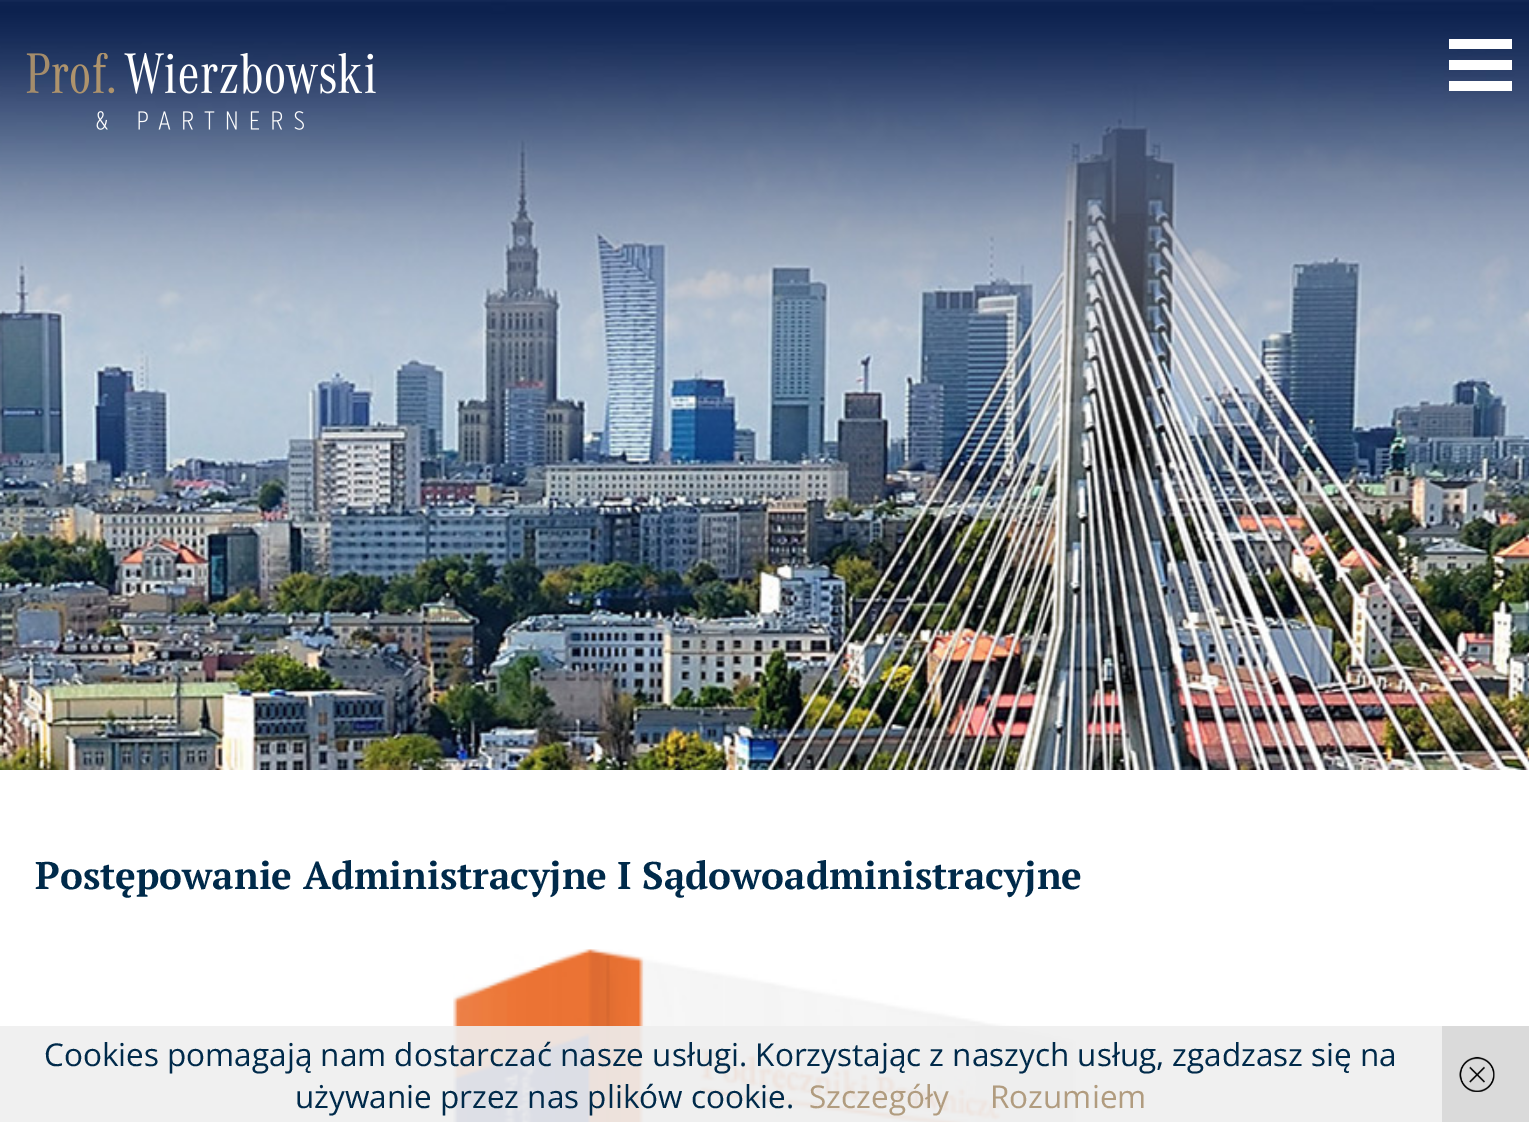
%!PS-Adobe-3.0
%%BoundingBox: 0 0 1529 1122
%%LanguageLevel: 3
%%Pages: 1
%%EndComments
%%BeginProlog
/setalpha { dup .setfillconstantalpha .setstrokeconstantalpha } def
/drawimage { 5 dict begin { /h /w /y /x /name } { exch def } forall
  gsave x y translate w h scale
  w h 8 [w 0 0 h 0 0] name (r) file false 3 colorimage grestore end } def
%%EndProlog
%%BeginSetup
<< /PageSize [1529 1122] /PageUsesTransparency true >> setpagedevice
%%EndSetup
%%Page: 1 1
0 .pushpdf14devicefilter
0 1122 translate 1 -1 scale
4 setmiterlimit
1 setgray
0 0 1529 1122 rectfill
(images/1.raw) 0 0 1529 770 drawimage
(images/2.raw) 26 53 350 77 drawimage
1449 39 63 10 rectfill
1449 60 63 10 rectfill
1449 81 63 10 rectfill
(images/3.raw) 453 949 623 173 drawimage
0.9 setalpha
0.933 setgray
0 1026 1442 96 rectfill
1 setalpha
0.855 setgray
1442 1026 87 96 rectfill
(images/4.raw) 1459 1056 36 36 drawimage
/PTSerif-Bold [38.5 0 0 -38.5 0 0] selectfont
0 0.165 0.29 setrgbcolor
35 889 moveto (Postępowanie Administracyjne I Sądowoadministracyjne) show
/OpenSans-Regular [31.5 0 0 -31.5 0 0] selectfont
44 1066 moveto (Cookies pomagają nam dostarczać nasze usługi. Korzystając z naszych usług, zgadzasz się na) show
295 1108 moveto (używanie przez nas plików cookie.) show
0.694 0.612 0.498 setrgbcolor
809 1108 moveto (Szczegóły) show
990 1108 moveto (Rozumiem) show
.poppdf14devicefilter showpage
%%EOF
